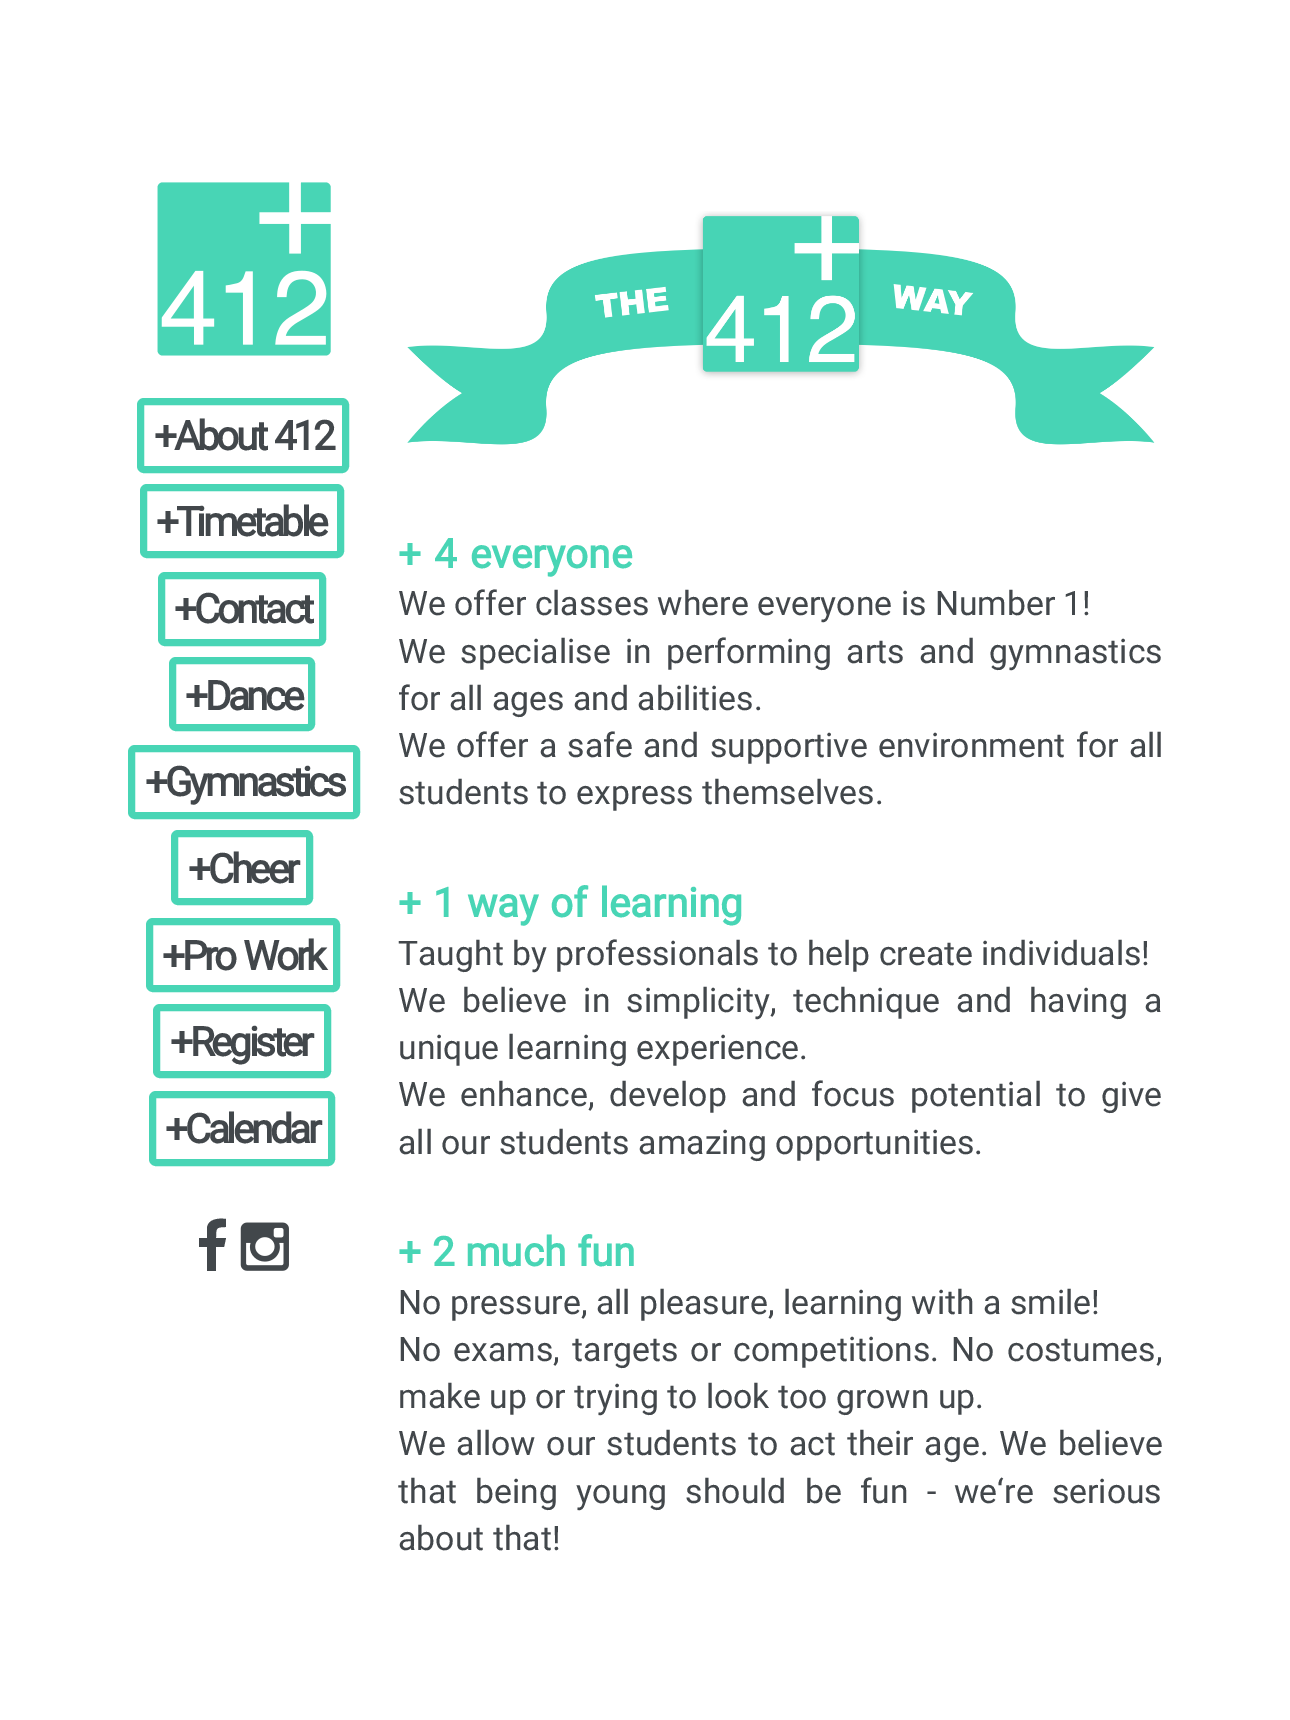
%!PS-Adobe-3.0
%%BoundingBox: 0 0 1290 1720
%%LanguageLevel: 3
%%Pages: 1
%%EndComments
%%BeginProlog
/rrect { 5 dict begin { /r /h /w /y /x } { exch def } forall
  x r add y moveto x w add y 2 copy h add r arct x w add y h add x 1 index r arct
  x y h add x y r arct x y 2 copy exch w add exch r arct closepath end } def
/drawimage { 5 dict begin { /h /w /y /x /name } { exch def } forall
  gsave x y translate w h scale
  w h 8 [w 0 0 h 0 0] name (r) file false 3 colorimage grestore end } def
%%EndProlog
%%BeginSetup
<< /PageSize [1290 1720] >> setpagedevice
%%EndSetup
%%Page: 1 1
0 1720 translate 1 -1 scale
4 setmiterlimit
1 setgray
0 0 1290 1720 rectfill
(images/1.raw) 157 182 174 174 drawimage
0.282 0.835 0.71 setrgbcolor
7 setlinewidth
140.5 401.5 205 68 3.5 rrect stroke
143.5 487.5 197 67 3.5 rrect stroke
161.5 575.5 161 67 3.5 rrect stroke
172.5 660.5 139 67 3.5 rrect stroke
131.5 748.5 225 67 3.5 rrect stroke
174.5 833.5 135 68 3.5 rrect stroke
149.5 921.5 187 67 3.5 rrect stroke
156.5 1007.5 171 67 3.5 rrect stroke
152.5 1094.5 179 68 3.5 rrect stroke
0.259 0.278 0.294 setrgbcolor
newpath 226 1219 moveto 226 1227 lineto 216 1227 216 1228 216 1238 curveto 226 1238 lineto 224 1247 lineto 216 1247 lineto 216 1271 lineto 207 1271 lineto 207 1247 lineto 199 1247 lineto 199 1238 lineto 207 1238 lineto 207 1228 lineto 208 1219 218 1218 226 1219 curveto closepath fill
(images/2.raw) 240 1222 49 49 drawimage
(images/3.raw) 407 211 748 234 drawimage
/Roboto-Bold [40.5 0 0 -40.5 0 0] selectfont
154 450 moveto 3 0 32 -3.4 0 (+About 412) awidthshow
156 536 moveto -3.4 0 (+Timetable) ashow
174 623 moveto -3.4 0 (+Contact) ashow
185 710 moveto -3.4 0 (+Dance) ashow
145 796 moveto -3.4 0 (+Gymnastics) ashow
188 883 moveto -3.4 0 (+Cheer) ashow
162 970 moveto 3 0 32 -3.4 0 (+Pro Work) awidthshow
170 1056 moveto -3.4 0 (+Register) ashow
165 1143 moveto -3.4 0 (+Calendar) ashow
0.282 0.835 0.71 setrgbcolor
398 568 moveto 3 0 32 (+ 4 everyone) widthshow
/Roboto-Regular [33.75 0 0 -33.75 0 0] selectfont
0.259 0.278 0.294 setrgbcolor
398 615 moveto (We offer classes where everyone is Number 1!) show
398 663 moveto 6 0 32 (We specialise in performing arts and gymnastics) widthshow
398 710 moveto (for all ages and abilities.) show
398 757 moveto 2 0 32 (We offer a safe and supportive environment for all) widthshow
398 804 moveto (students to express themselves.) show
/Roboto-Bold [40.5 0 0 -40.5 0 0] selectfont
0.282 0.835 0.71 setrgbcolor
398 917 moveto 1.5 0 32 (+ 1 way of learning) widthshow
/Roboto-Regular [33.75 0 0 -33.75 0 0] selectfont
0.259 0.278 0.294 setrgbcolor
398 965 moveto (Taught by professionals to help create individuals!) show
398 1012 moveto 7.75 0 32 (We believe in simplicity, technique and having a) widthshow
398 1059 moveto (unique learning experience.) show
398 1106 moveto 6 0 32 (We enhance, develop and focus potential to give) widthshow
398 1154 moveto (all our students amazing opportunities.) show
/Roboto-Bold [40.5 0 0 -40.5 0 0] selectfont
0.282 0.835 0.71 setrgbcolor
398 1266 moveto 0.5 0 32 (+ 2 much fun) widthshow
/Roboto-Regular [33.75 0 0 -33.75 0 0] selectfont
0.259 0.278 0.294 setrgbcolor
398 1314 moveto (No pressure, all pleasure, learning with a smile!) show
398 1361 moveto 3.75 0 32 (No exams, targets or competitions. No costumes,) widthshow
398 1408 moveto (make up or trying to look too grown up.) show
398 1455 moveto 2.25 0 32 (We allow our students to act their age. We believe) widthshow
398 1503 moveto 9.75 0 32 (that being young should be fun - we‘re serious) widthshow
398 1550 moveto (about that!) show
showpage
%%EOF
